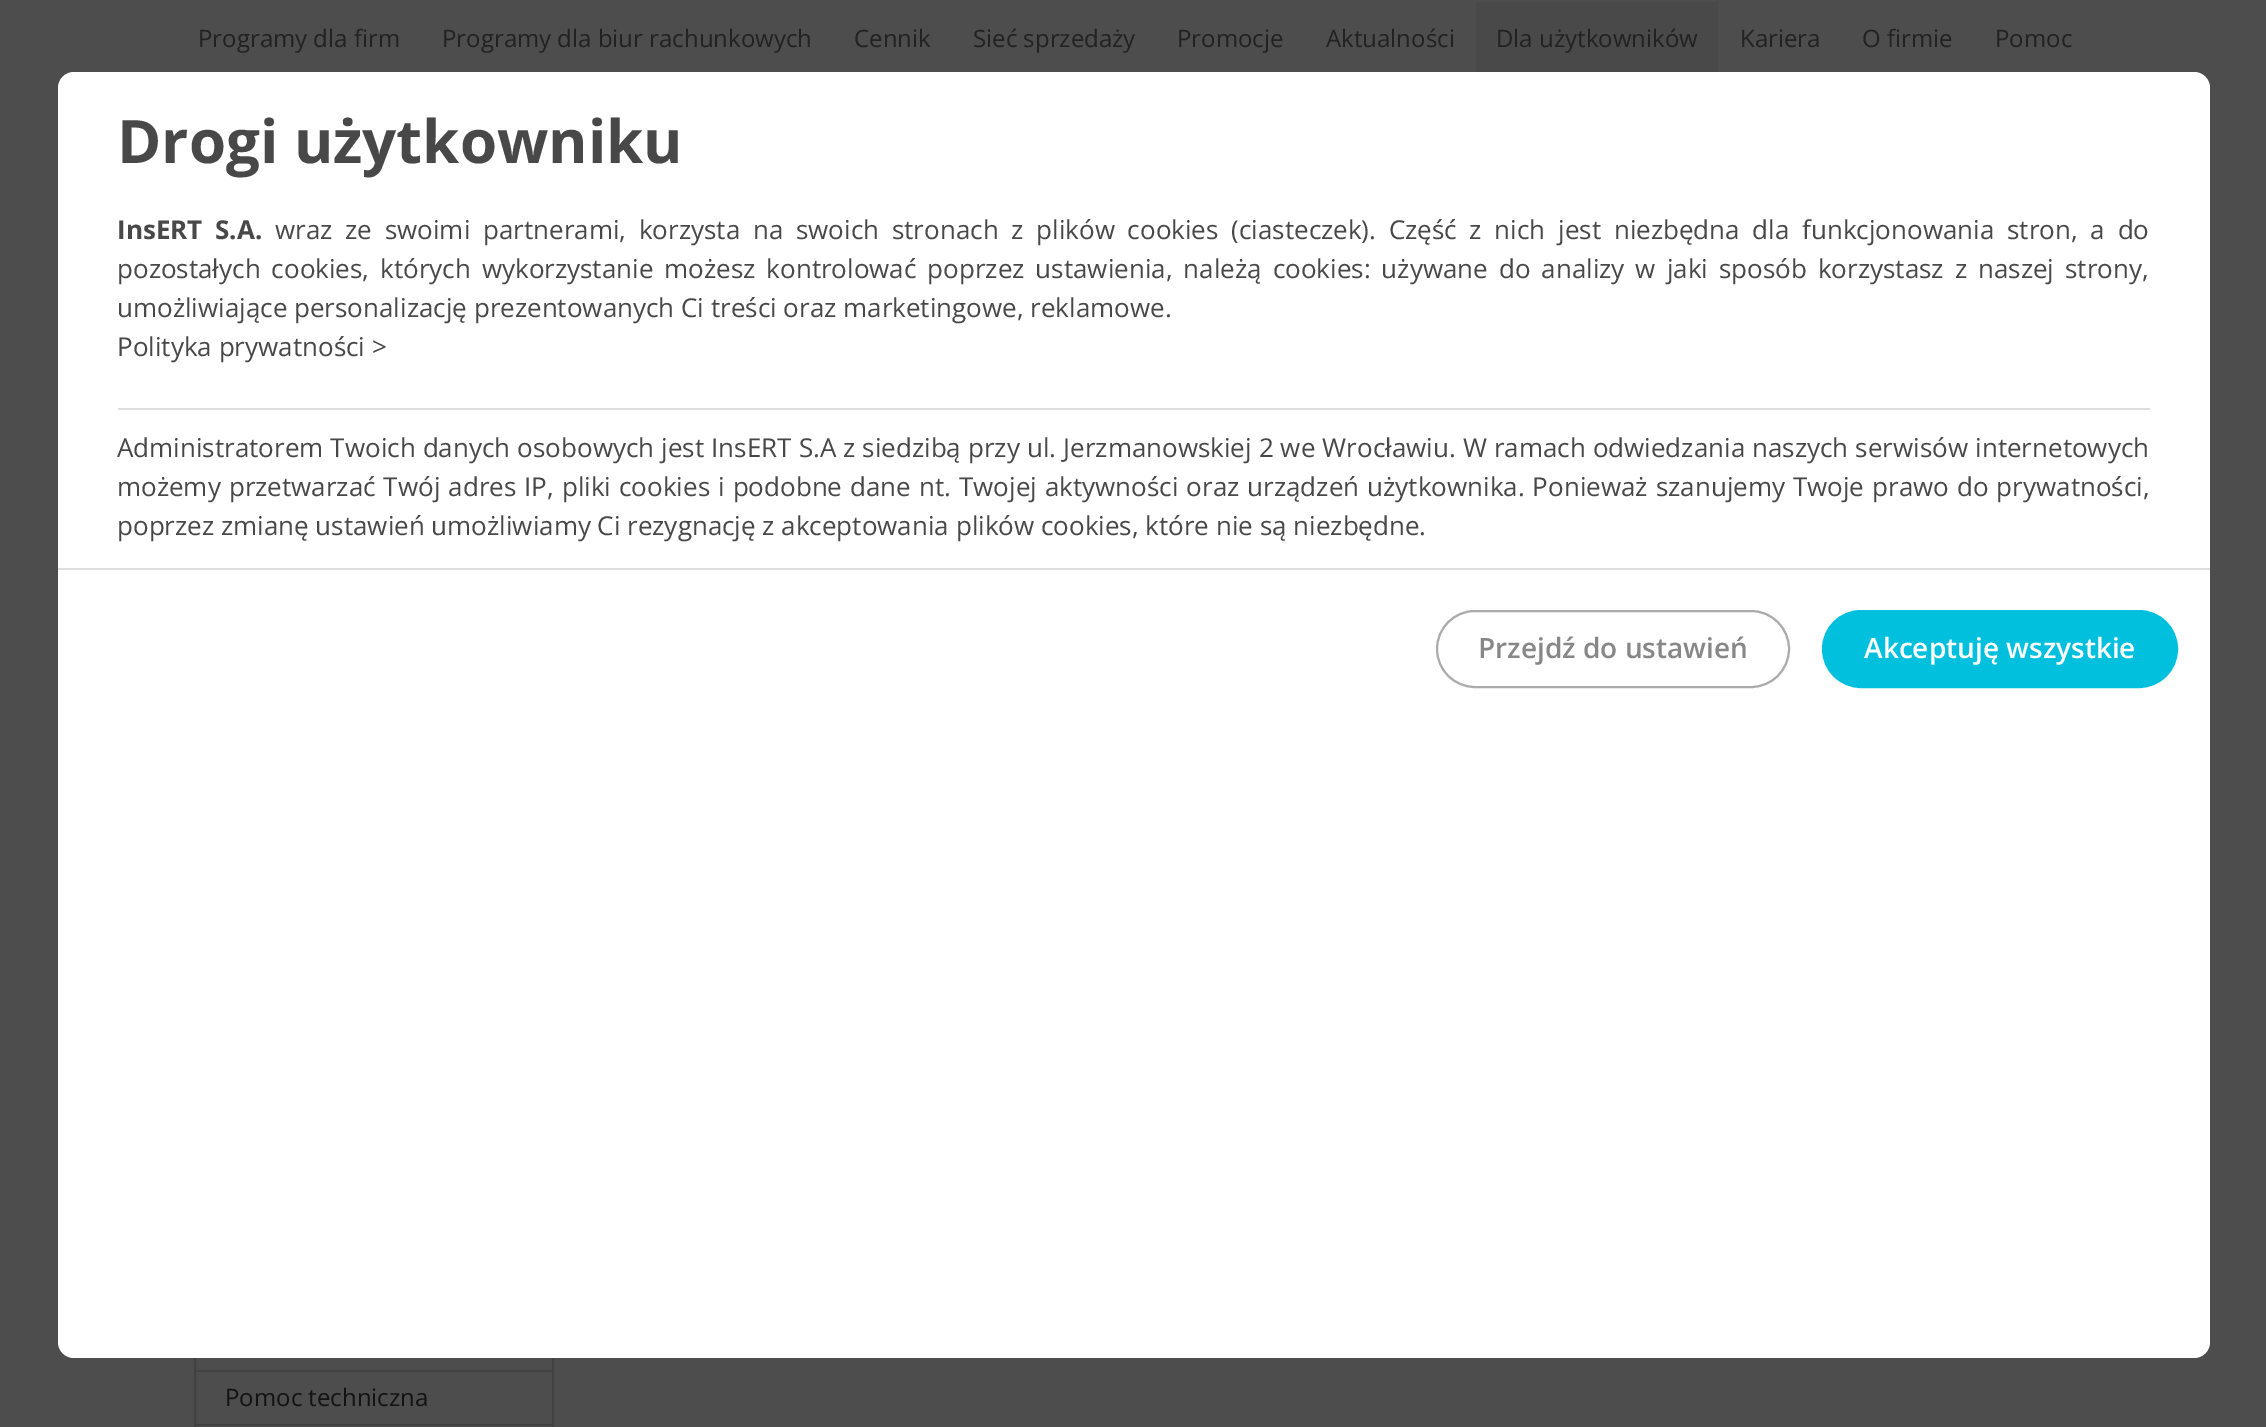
%!PS-Adobe-3.0
%%BoundingBox: 0 0 2266 1427
%%LanguageLevel: 3
%%Pages: 1
%%EndComments
%%BeginProlog
/rrect { 5 dict begin { /r /h /w /y /x } { exch def } forall
  x r add y moveto x w add y 2 copy h add r arct x w add y h add x 1 index r arct
  x y h add x y r arct x y 2 copy exch w add exch r arct closepath end } def
%%EndProlog
%%BeginSetup
<< /PageSize [2266 1427] >> setpagedevice
%%EndSetup
%%Page: 1 1
0 1427 translate 1 -1 scale
4 setmiterlimit
0.302 setgray
0 0 2266 1427 rectfill
0.286 setgray
1476 2 242 70 rectfill
0.259 setgray
2 setlinewidth
195 983 358 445 rectstroke
196 1370 356 2 rectfill
196 1424 356 2 rectfill
1 setgray
58 72 2152 1286 16 rrect fill
0.871 setgray
118 408 2032 2 rectfill
58 568 2152 2 rectfill
0.671 setgray
1437 611 352 76 38 rrect stroke
0 0.753 0.871 setrgbcolor
1823 611 354 76 38 rrect gsave fill grestore
stroke
/OpenSans-Regular [24 0 0 -24 0 0] selectfont
0.133 setgray
198 47 moveto (Programy dla firm) show
442 47 moveto (Programy dla biur rachunkowych) show
854 47 moveto (Cennik) show
973 47 moveto (Sieć sprzedaży) show
1177 47 moveto (Promocje) show
1326 47 moveto (Aktualności) show
1496 47 moveto (Dla użytkowników) show
1740 47 moveto (Kariera) show
1862 47 moveto (O firmie) show
1995 47 moveto (Pomoc) show
0.078 0.075 0.078 setrgbcolor
225 1406 moveto (Pomoc techniczna) show
/OpenSans-Bold [60 0 0 -60 0 0] selectfont
0.282 setgray
117 163 moveto (Drogi użytkowniku) show
/OpenSans-Bold [26 0 0 -26 0 0] selectfont
117 239 moveto 6 0 32 (InsERT S.A.) widthshow
/OpenSans-Regular [26 0 0 -26 0 0] selectfont
275 239 moveto 6 0 32 (wraz ze swoimi partnerami, korzysta na swoich stronach z plików cookies \(ciasteczek\). Część z nich jest niezbędna dla funkcjonowania stron, a do) widthshow
117 278 moveto 4.25 0 32 (pozostałych cookies, których wykorzystanie możesz kontrolować poprzez ustawienia, należą cookies: używane do analizy w jaki sposób korzystasz z naszej strony,) widthshow
117 317 moveto (umożliwiające personalizację prezentowanych Ci treści oraz marketingowe, reklamowe.) show
117 356 moveto (Polityka prywatności >) show
117 457 moveto 0.3 0 32 (Administratorem Twoich danych osobowych jest InsERT S.A z siedzibą przy ul. Jerzmanowskiej 2 we Wrocławiu. W ramach odwiedzania naszych serwisów internetowych) widthshow
117 496 moveto 1.25 0 32 (możemy przetwarzać Twój adres IP, pliki cookies i podobne dane nt. Twojej aktywności oraz urządzeń użytkownika. Ponieważ szanujemy Twoje prawo do prywatności,) widthshow
117 535 moveto (poprzez zmianę ustawień umożliwiamy Ci rezygnację z akceptowania plików cookies, które nie są niezbędne.) show
/OpenSans-SemiBold [28 0 0 -28 0 0] selectfont
0.529 setgray
1478 658 moveto (Przejdź do ustawień) show
1 setgray
1864 658 moveto (Akceptuję wszystkie) show
showpage
%%EOF
